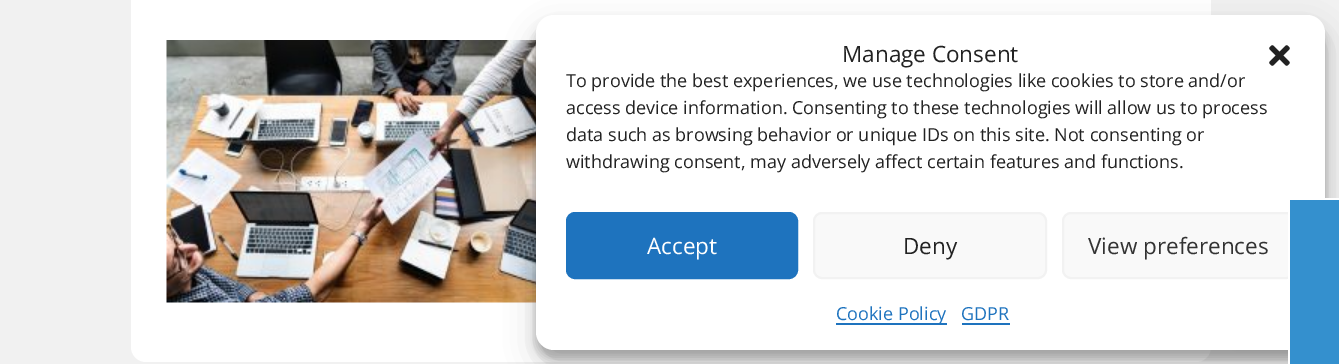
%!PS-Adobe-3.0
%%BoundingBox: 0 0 1339 364
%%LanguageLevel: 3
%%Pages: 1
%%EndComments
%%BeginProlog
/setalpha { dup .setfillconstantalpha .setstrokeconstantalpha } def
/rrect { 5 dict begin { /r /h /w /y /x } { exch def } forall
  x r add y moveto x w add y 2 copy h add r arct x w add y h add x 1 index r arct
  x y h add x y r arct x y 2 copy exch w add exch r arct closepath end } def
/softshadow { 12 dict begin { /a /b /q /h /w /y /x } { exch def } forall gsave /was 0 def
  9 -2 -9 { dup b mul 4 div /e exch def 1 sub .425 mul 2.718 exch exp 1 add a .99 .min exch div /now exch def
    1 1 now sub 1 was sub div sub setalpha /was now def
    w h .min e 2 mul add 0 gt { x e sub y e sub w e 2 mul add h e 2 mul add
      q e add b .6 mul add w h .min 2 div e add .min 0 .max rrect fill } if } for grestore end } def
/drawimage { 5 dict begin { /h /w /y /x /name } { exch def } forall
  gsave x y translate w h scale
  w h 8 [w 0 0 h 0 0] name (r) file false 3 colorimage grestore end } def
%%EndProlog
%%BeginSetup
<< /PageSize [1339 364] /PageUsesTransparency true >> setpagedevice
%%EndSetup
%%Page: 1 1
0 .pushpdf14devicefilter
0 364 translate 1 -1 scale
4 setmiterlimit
0.945 setgray
0 0 1339 364 rectfill
1 setgray
131 -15 1080 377 15 rrect fill
(images/1.raw) 166 40 370 263 drawimage
0 setgray
536 24 789 335 18 4.5 0.23 softshadow
536 30 789 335 18 15 0.19 softshadow
0.502 setgray
1235 254 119 90 3 4 1 softshadow
1 setgray
536 15 789 335 18 rrect fill
(images/2.raw) 1269 45 21 21 drawimage
0.118 0.451 0.745 setrgbcolor
567 213 230 65 8 rrect gsave fill grestore
2 setlinewidth
stroke
0.976 setgray
814 213 232 65 8 rrect gsave fill grestore
0.949 setgray
stroke
0.976 setgray
1063 213 231 65 8 rrect gsave fill grestore
0.949 setgray
stroke
0.118 0.451 0.745 setrgbcolor
836 323 111 2 rectfill
962 323 48 2 rectfill
0.204 0.565 0.808 setrgbcolor
1290 200 49 164 rectfill
1 setgray
1288 212 2 152 rectfill
1325 198 14 2 rectfill
/OpenSans-Regular [22.5 0 0 -22.5 0 0] selectfont
0.133 setgray
842 62 moveto (Manage Consent) show
/OpenSans-Regular [18 0 0 -18 0 0] selectfont
566 87 moveto (To provide the best experiences, we use technologies like cookies to store and/or) show
566 114 moveto (access device information. Consenting to these technologies will allow us to process) show
566 141 moveto (data such as browsing behavior or unique IDs on this site. Not consenting or) show
566 168 moveto (withdrawing consent, may adversely affect certain features and functions.) show
/OpenSans-Regular [22.5 0 0 -22.5 0 0] selectfont
1 setgray
647 254 moveto (Accept) show
0.133 setgray
903 254 moveto (Deny) show
0.2 setgray
1088 254 moveto (View preferences) show
/OpenSans-Regular [18 0 0 -18 0 0] selectfont
0.118 0.451 0.745 setrgbcolor
836 320 moveto (Cookie Policy) show
961 320 moveto (GDPR) show
.poppdf14devicefilter showpage
%%EOF
